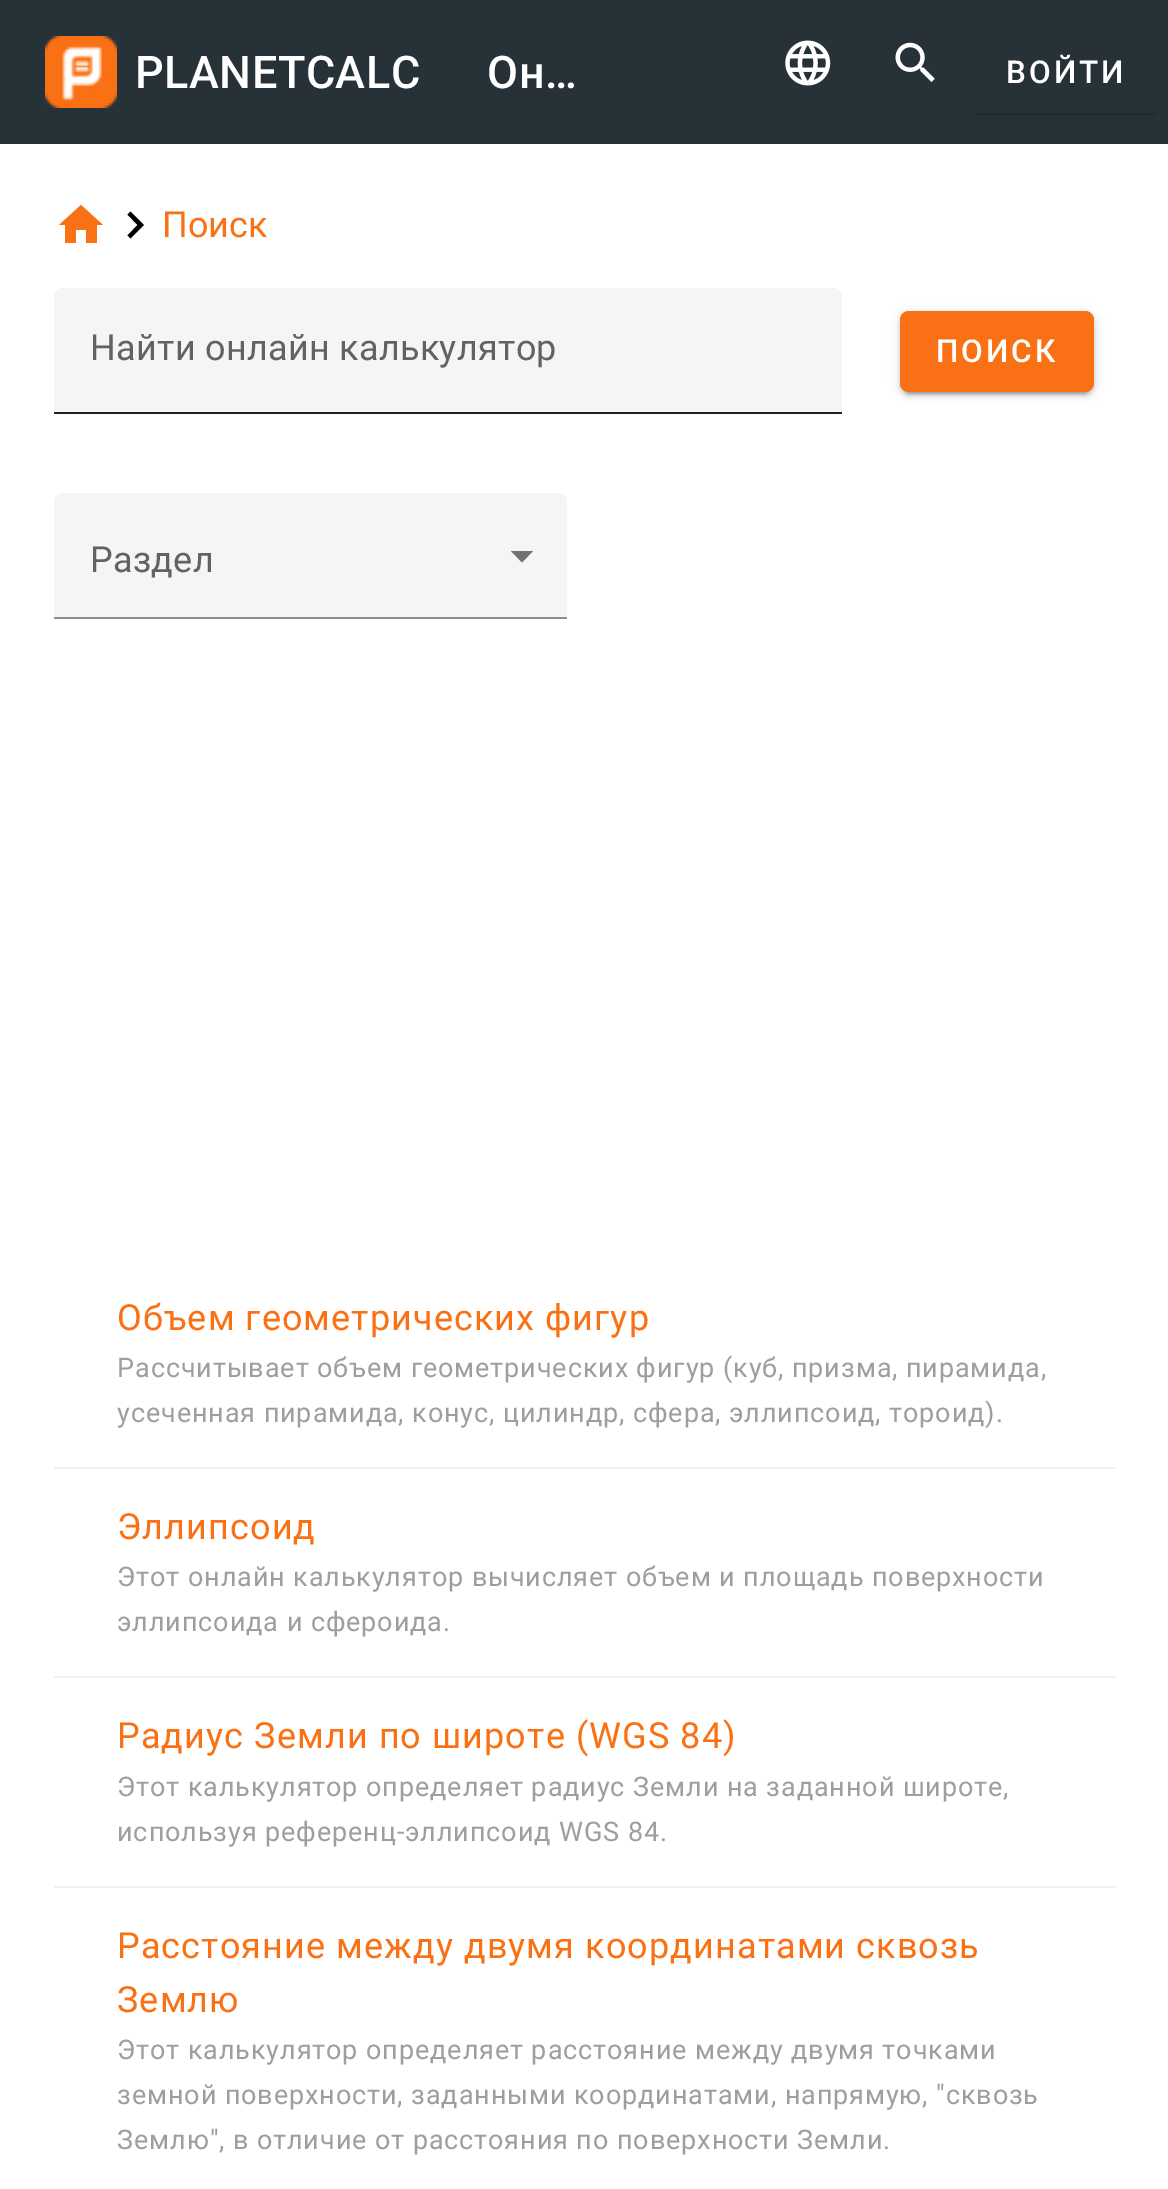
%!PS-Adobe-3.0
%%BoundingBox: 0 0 1168 2189
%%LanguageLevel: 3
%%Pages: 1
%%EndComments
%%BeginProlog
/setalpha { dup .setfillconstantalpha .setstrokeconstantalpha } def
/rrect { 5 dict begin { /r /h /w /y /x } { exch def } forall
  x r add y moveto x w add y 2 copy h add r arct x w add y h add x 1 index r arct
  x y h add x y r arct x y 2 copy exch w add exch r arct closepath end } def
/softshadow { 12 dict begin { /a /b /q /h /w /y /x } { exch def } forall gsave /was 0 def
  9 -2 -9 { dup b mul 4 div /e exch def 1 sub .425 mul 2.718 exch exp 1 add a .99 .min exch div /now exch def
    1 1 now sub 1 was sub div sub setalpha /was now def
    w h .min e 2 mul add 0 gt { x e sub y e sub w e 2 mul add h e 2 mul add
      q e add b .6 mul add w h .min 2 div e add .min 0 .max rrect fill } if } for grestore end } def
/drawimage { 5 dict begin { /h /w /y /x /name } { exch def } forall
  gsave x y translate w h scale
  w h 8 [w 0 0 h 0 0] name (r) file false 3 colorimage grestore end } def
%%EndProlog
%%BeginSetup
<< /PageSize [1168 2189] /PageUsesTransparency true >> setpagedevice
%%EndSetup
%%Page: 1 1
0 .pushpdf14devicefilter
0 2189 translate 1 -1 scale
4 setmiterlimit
1 setgray
0 0 1168 2189 rectfill
0.149 0.196 0.22 setrgbcolor
0 0 1168 144 rectfill
(images/1.raw) 45 36 72 72 drawimage
(images/2.raw) 785 40 46 46 drawimage
(images/3.raw) 895 42 40 40 drawimage
0 setgray
974 43 183 72 5 1 0.2 softshadow
0.149 0.196 0.22 setrgbcolor
970 32 191 81 9 rrect fill
0.98 0.439 0.078 setrgbcolor
newpath 76 243 moveto 76 230 lineto 86 230 lineto 86 243 lineto 97 243 lineto 97 225 lineto 103 225 lineto 81 205 lineto 59 225 lineto 65 225 lineto 65 243 lineto closepath fill
0 setgray
newpath 130.5 211.5 moveto 127.5 214.5 lineto 137.5 225 lineto 127.5 235.5 lineto 130.5 238.5 lineto 144 225 lineto closepath fill
0.961 setgray
newpath 63 288 moveto 833 288 lineto 838 288 842 292 842 297 curveto 842 414 lineto 54 414 lineto 54 297 lineto 54 292 58 288 63 288 curveto closepath fill
0.125 setgray
54 412 788 2 rectfill
0 setgray
900 313 194 81 9 5.5 0.12 softshadow
900 315 194 81 9 2 0.14 softshadow
905 322 184 72 5 1 0.2 softshadow
0.98 0.439 0.078 setrgbcolor
900 311 194 81 9 rrect fill
0.961 setgray
newpath 63 493 moveto 558 493 lineto 563 493 567 497 567 502 curveto 567 619 lineto 54 619 lineto 54 502 lineto 54 497 58 493 63 493 curveto closepath fill
0.443 setgray
newpath 511 551 moveto 522 562.5 lineto 533 551 lineto closepath eofill
0.557 setgray
54 617 513 2 rectfill
0.941 setgray
54 1467 1062 2 rectfill
54 1676 1062 2 rectfill
54 1886 1062 2 rectfill
/Roboto-Medium [45 0 0 -45 0 0] selectfont
1 setgray
135 88 moveto 0.5 0 (PLANETCALC) ashow
487 88 moveto 0.5 0 (Он…) ashow
/Roboto-Medium [31.5 0 0 -31.5 0 0] selectfont
1006 83 moveto 3 0 (ВОЙТИ) ashow
/Roboto-Regular [36 0 0 -36 0 0] selectfont
0.98 0.439 0.078 setrgbcolor
162 237 moveto (Поиск) show
0.384 setgray
90 360 moveto 0.3 0 (Найти онлайн калькулятор) ashow
/Roboto-Medium [31.5 0 0 -31.5 0 0] selectfont
1 setgray
936 362 moveto 3 0 (ПОИСК) ashow
/Roboto-Regular [36 0 0 -36 0 0] selectfont
0.384 setgray
90 572 moveto 0.3 0 (Раздел) ashow
0.98 0.439 0.078 setrgbcolor
117 1330 moveto 1.1 0 (Объем геометрических фигур) ashow
/Roboto-Regular [27 0 0 -27 0 0] selectfont
0.62 setgray
117 1377 moveto 0.9 0 (Рассчитывает объем геометрических фигур \(куб, призма, пирамида,) ashow
117 1422 moveto 0.9 0 (усеченная пирамида, конус, цилиндр, сфера, эллипсоид, тороид\).) ashow
/Roboto-Regular [36 0 0 -36 0 0] selectfont
0.98 0.439 0.078 setrgbcolor
117 1539 moveto 1.1 0 (Эллипсоид) ashow
/Roboto-Regular [27 0 0 -27 0 0] selectfont
0.62 setgray
117 1586 moveto 0.9 0 (Этот онлайн калькулятор вычисляет объем и площадь поверхности) ashow
117 1631 moveto 0.9 0 (эллипсоида и сфероида.) ashow
/Roboto-Regular [36 0 0 -36 0 0] selectfont
0.98 0.439 0.078 setrgbcolor
117 1748 moveto 1.1 0 (Радиус Земли по широте \(WGS 84\)) ashow
/Roboto-Regular [27 0 0 -27 0 0] selectfont
0.62 setgray
117 1796 moveto 0.9 0 (Этот калькулятор определяет радиус Земли на заданной широте,) ashow
117 1841 moveto 0.9 0 (используя референц-эллипсоид WGS 84.) ashow
/Roboto-Regular [36 0 0 -36 0 0] selectfont
0.98 0.439 0.078 setrgbcolor
117 1958 moveto 1.1 0 (Расстояние между двумя координатами сквозь) ashow
117 2012 moveto 1.1 0 (Землю) ashow
/Roboto-Regular [27 0 0 -27 0 0] selectfont
0.62 setgray
117 2059 moveto 0.9 0 (Этот калькулятор определяет расстояние между двумя точками) ashow
117 2104 moveto 0.9 0 (земной поверхности, заданными координатами, напрямую, "сквозь) ashow
117 2149 moveto 0.9 0 (Землю", в отличие от расстояния по поверхности Земли.) ashow
.poppdf14devicefilter showpage
%%EOF
